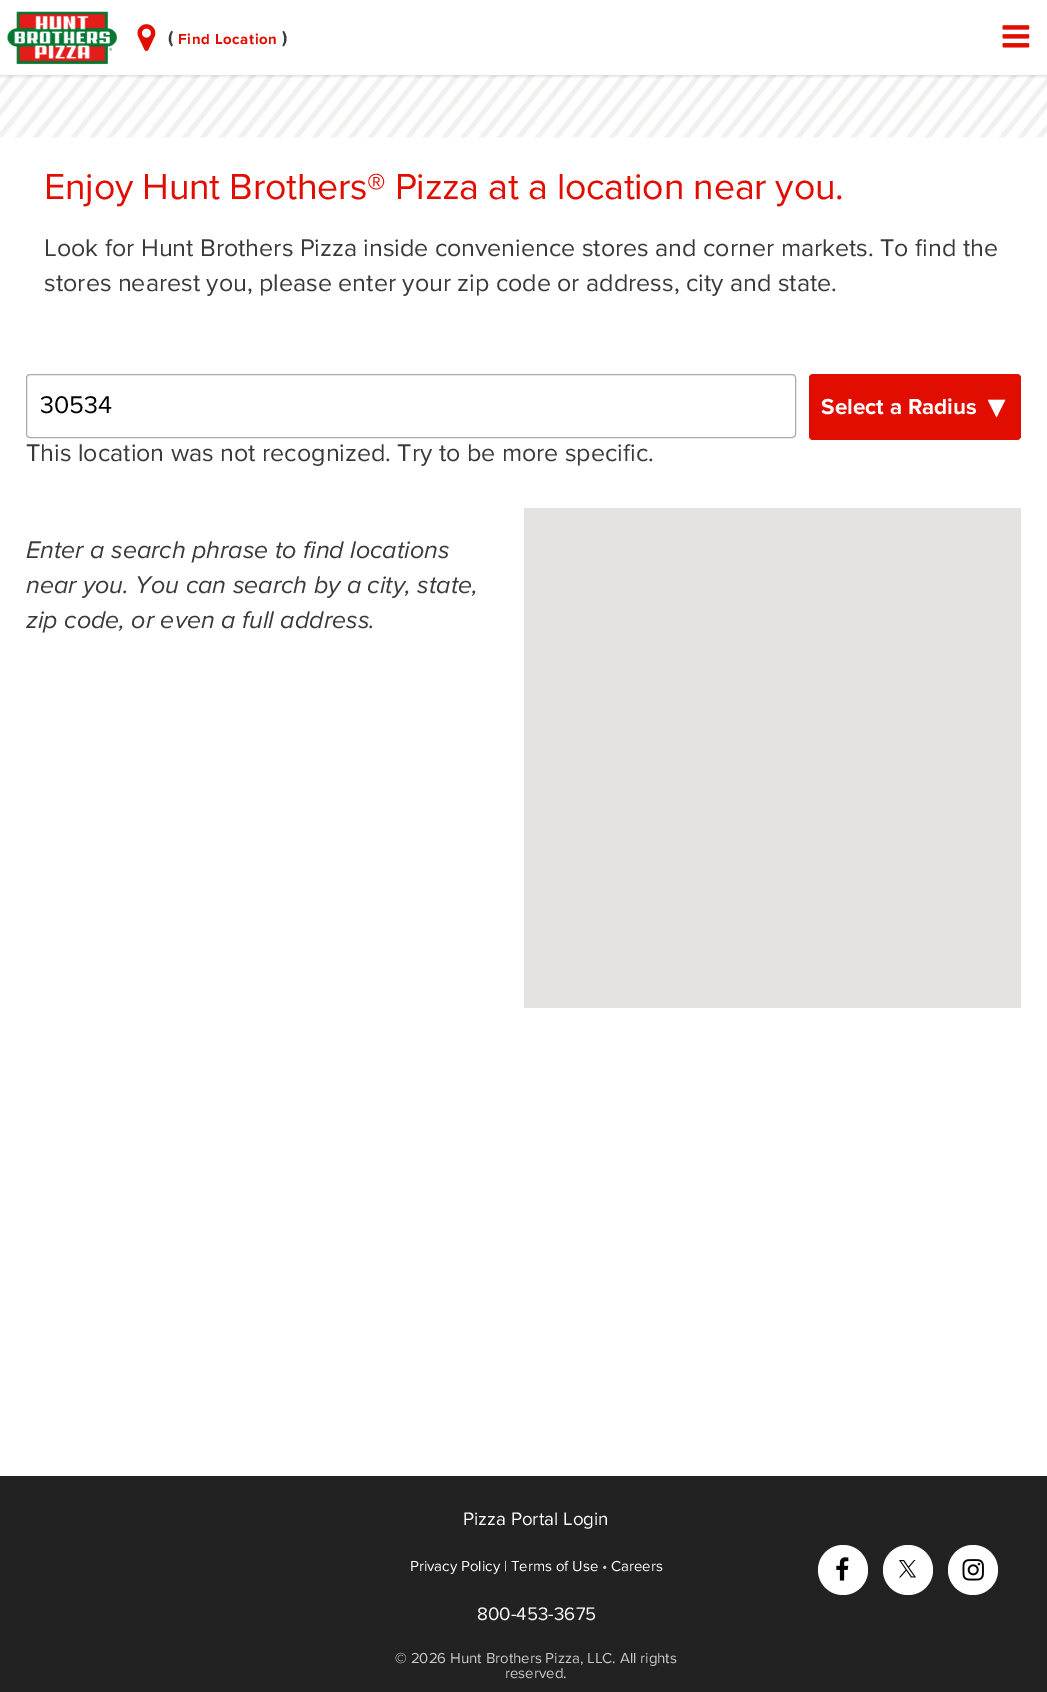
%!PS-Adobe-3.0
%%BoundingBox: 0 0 1047 1692
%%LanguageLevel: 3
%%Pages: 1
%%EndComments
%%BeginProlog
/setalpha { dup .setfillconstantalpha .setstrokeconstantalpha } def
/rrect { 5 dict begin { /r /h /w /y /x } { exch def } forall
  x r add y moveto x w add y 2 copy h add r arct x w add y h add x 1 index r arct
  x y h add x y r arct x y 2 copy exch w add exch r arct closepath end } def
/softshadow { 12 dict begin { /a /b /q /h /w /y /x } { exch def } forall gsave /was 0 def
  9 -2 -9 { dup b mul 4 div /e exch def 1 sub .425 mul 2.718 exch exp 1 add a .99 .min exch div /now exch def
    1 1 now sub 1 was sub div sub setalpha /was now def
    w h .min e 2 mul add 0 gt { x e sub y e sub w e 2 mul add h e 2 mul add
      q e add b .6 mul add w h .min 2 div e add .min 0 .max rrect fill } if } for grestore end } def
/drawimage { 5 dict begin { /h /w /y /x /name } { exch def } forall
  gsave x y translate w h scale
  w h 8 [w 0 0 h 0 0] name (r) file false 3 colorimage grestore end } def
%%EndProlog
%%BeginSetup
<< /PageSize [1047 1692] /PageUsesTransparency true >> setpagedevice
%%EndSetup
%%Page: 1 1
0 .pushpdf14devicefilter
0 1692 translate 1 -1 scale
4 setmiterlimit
1 setgray
0 0 1047 1692 rectfill
(images/4.raw) 0 75 1047 63 drawimage
gsave
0 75 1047 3 rectclip
0 setgray
0 0 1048 75 0 2.5 0.2 softshadow
grestore
(images/1.raw) 7 11 110 54 drawimage
(images/2.raw) 137 24 19 27 drawimage
(images/3.raw) 1002 25 28 23 drawimage
0.667 setgray
26.5 374.5 769 63 3.5 rrect stroke
0.882 0.051 0 setrgbcolor
809 374 212 66 4 rrect fill
(images/5.raw) 988 399 18 19 drawimage
0.898 0.89 0.875 setrgbcolor
524 508 497 500 rectfill
0.129 0.133 0.129 setrgbcolor
0 1476 1047 216 rectfill
1 setgray
newpath 843 1570 25 0 360 arc closepath fill
(images/6.raw) 836 1557 13 24 drawimage
newpath 908 1570 25 0 360 arc closepath fill
(images/7.raw) 899 1560 17 18 drawimage
newpath 973 1570 25 0 360 arc closepath fill
(images/8.raw) 962 1559 22 22 drawimage
/ProximaNova-Bold [18 0 0 -18 0 0] selectfont
0.227 setgray
168 43 moveto (\() show
/ProximaNova-Bold [15 0 0 -15 0 0] selectfont
0.882 0.051 0 setrgbcolor
178 44 moveto 0.6 0 (Find Location) ashow
/ProximaNova-Bold [18 0 0 -18 0 0] selectfont
0.227 setgray
282 43 moveto (\)) show
/ProximaNova-Regular [37.5 0 0 -37.5 0 0] selectfont
0.882 0.051 0 setrgbcolor
44 199 moveto -0.3 0 (Enjoy Hunt Brothers® Pizza at a location near you.) ashow
/ProximaNova-Regular [25 0 0 -25 0 0] selectfont
0.227 setgray
44 256 moveto (Look for Hunt Brothers Pizza inside convenience stores and corner markets. To find the) show
44 291 moveto (stores nearest you, please enter your zip code or address, city and state.) show
0 setgray
40 413 moveto (30534) show
0.227 setgray
26 461 moveto (This location was not recognized. Try to be more specific.) show
/ProximaNova-Bold [22.5 0 0 -22.5 0 0] selectfont
1 setgray
821 414 moveto (Select a Radius) show
/ProximaNova-Italic [25 0 0 -25 0 0] selectfont
0.227 setgray
26 558 moveto (Enter a search phrase to find locations) show
26 593 moveto (near you. You can search by a city, state,) show
26 628 moveto (zip code, or even a full address.) show
/ProximaNova-Regular [18.75 0 0 -18.75 0 0] selectfont
1 setgray
463 1525 moveto (Pizza Portal Login) show
/ProximaNova-Regular [15 0 0 -15 0 0] selectfont
410 1571 moveto (Privacy Policy | Terms of Use) show
0.788 setgray
602 1571 moveto (•) show
1 setgray
611 1571 moveto (Careers) show
/ProximaNova-Regular [18.75 0 0 -18.75 0 0] selectfont
477 1620 moveto (800-453-3675) show
/ProximaNova-Regular [15 0 0 -15 0 0] selectfont
0.788 setgray
395 1663 moveto (© 2026 Hunt Brothers Pizza, LLC. All rights) show
505 1678 moveto (reserved.) show
.poppdf14devicefilter showpage
%%EOF
